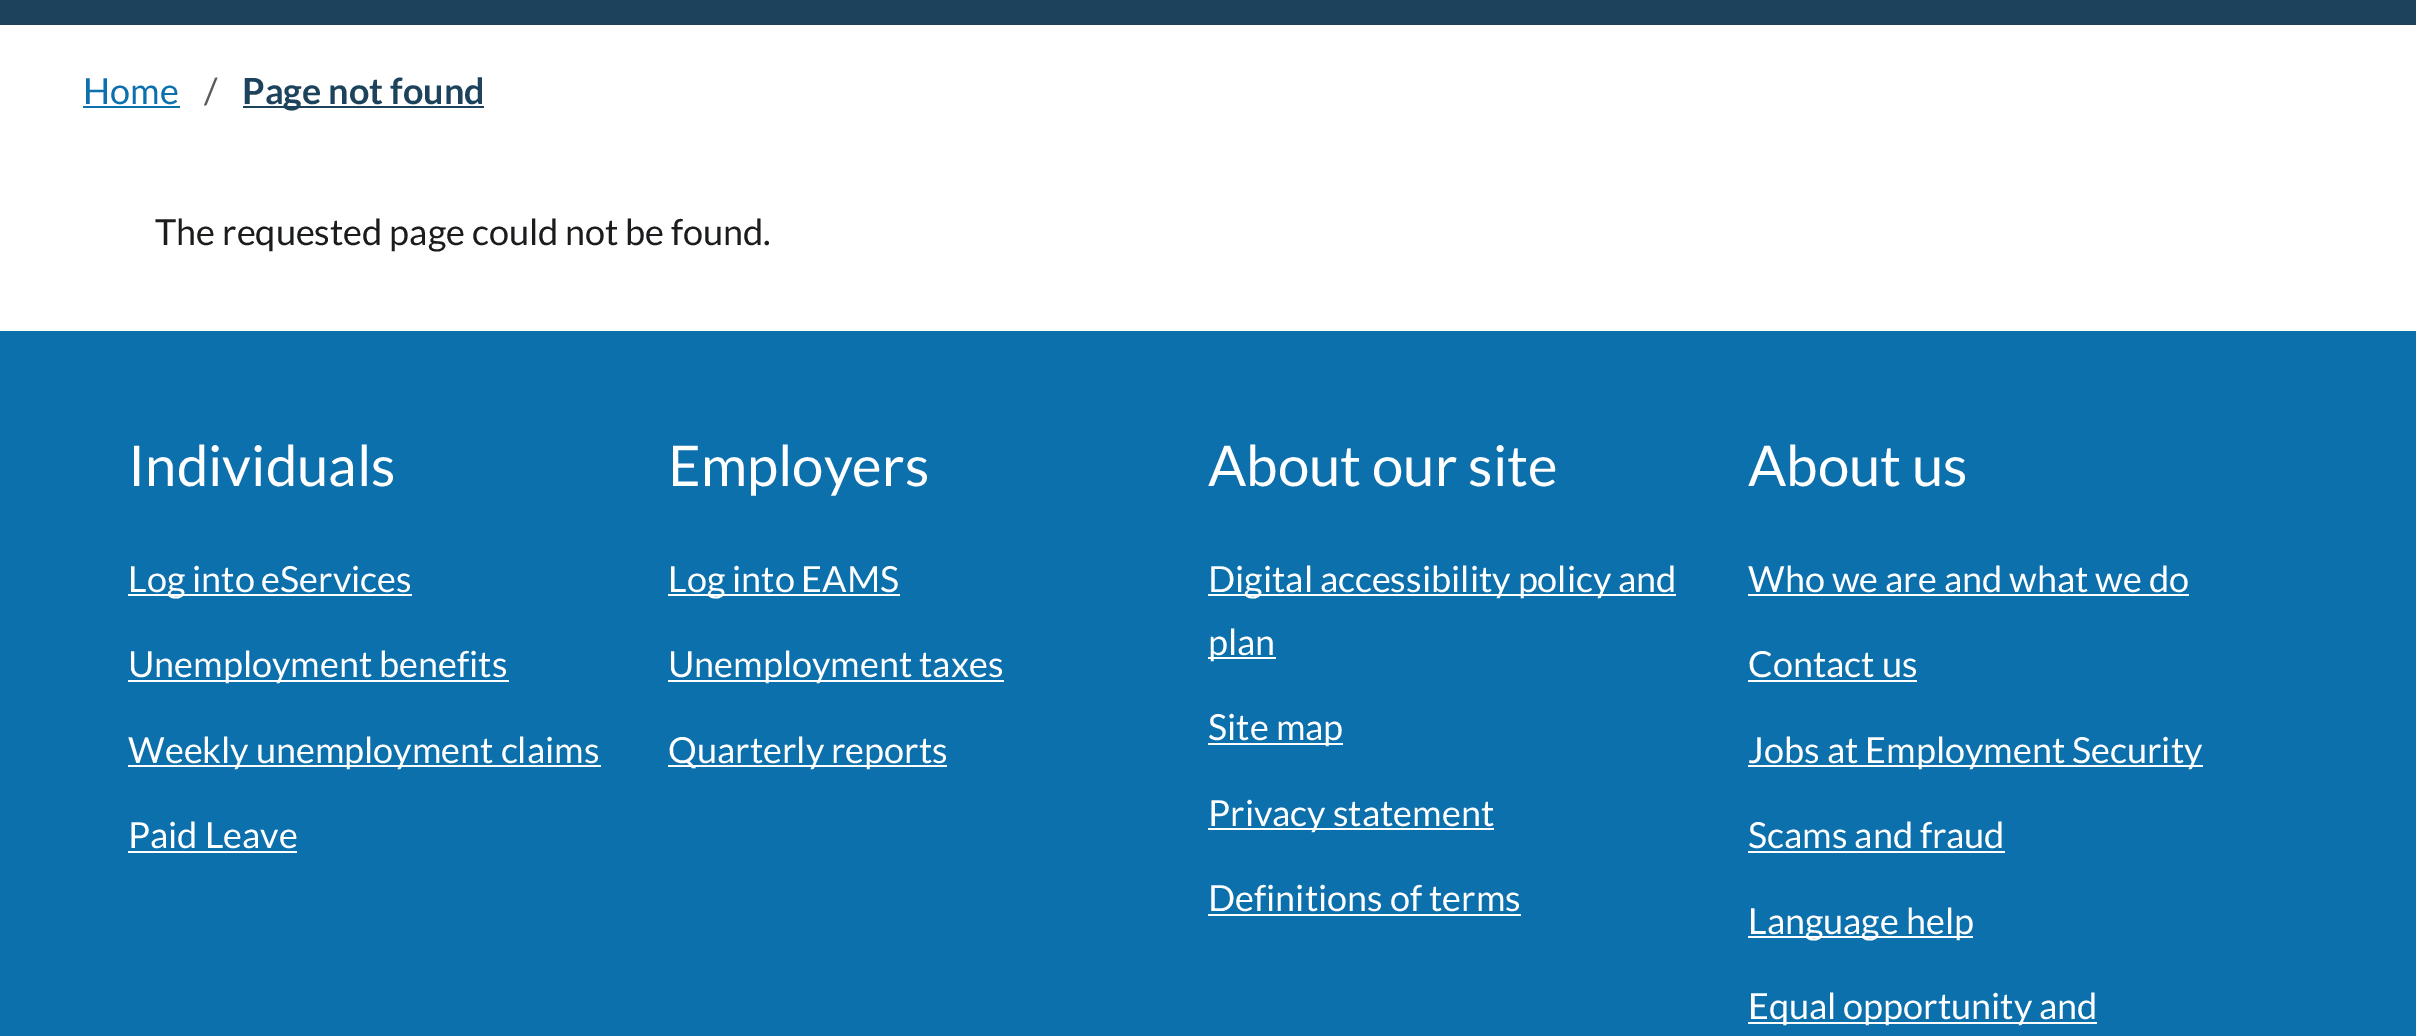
%!PS-Adobe-3.0
%%BoundingBox: 0 0 2416 1036
%%LanguageLevel: 3
%%Pages: 1
%%EndComments
%%BeginProlog
%%EndProlog
%%BeginSetup
<< /PageSize [2416 1036] >> setpagedevice
%%EndSetup
%%Page: 1 1
0 1036 translate 1 -1 scale
4 setmiterlimit
1 setgray
0 0 2416 1036 rectfill
0.114 0.263 0.361 setrgbcolor
0 0 2416 25 rectfill
0.047 0.439 0.678 setrgbcolor
83 106 97 2 rectfill
0.114 0.263 0.361 setrgbcolor
243 106 241 2 rectfill
0.047 0.439 0.678 setrgbcolor
0 331 2416 705 rectfill
0.996 0.996 1 setrgbcolor
128 594 284 2 rectfill
128 680 381 2 rectfill
128 765 473 2 rectfill
128 851 169 2 rectfill
668 594 232 2 rectfill
668 680 336 2 rectfill
668 765 279 2 rectfill
1208 594 468 2 rectfill
1208 657 68 2 rectfill
1208 743 135 2 rectfill
1208 828 286 2 rectfill
1208 914 313 2 rectfill
1748 594 441 2 rectfill
1748 680 169 2 rectfill
1748 765 455 2 rectfill
1748 851 257 2 rectfill
1748 936 225 2 rectfill
1748 1022 349 2 rectfill
/Lato-Regular [36 0 0 -36 0 0] selectfont
0.047 0.439 0.678 setrgbcolor
83 104 moveto (Home) show
0.361 setgray
204 104 moveto (/) show
/Lato-Bold [36 0 0 -36 0 0] selectfont
0.114 0.263 0.361 setrgbcolor
242 104 moveto (Page not found) show
/Lato-Regular [36 0 0 -36 0 0] selectfont
0.102 0.11 0.118 setrgbcolor
155 245 moveto (The requested page could not be found.) show
/Lato-Regular [56.25 0 0 -56.25 0 0] selectfont
1 setgray
128 486 moveto (Individuals) show
/Lato-Regular [36 0 0 -36 0 0] selectfont
128 592 moveto (Log into eServices) show
128 677 moveto (Unemployment benefits) show
128 763 moveto (Weekly unemployment claims) show
128 848 moveto (Paid Leave) show
/Lato-Regular [56.25 0 0 -56.25 0 0] selectfont
668 486 moveto (Employers) show
/Lato-Regular [36 0 0 -36 0 0] selectfont
668 592 moveto (Log into EAMS) show
668 677 moveto (Unemployment taxes) show
668 763 moveto (Quarterly reports) show
/Lato-Regular [56.25 0 0 -56.25 0 0] selectfont
1208 486 moveto (About our site) show
/Lato-Regular [36 0 0 -36 0 0] selectfont
1208 592 moveto (Digital accessibility policy and) show
1208 655 moveto (plan) show
1208 740 moveto (Site map) show
1208 826 moveto (Privacy statement) show
1208 911 moveto (Definitions of terms) show
/Lato-Regular [56.25 0 0 -56.25 0 0] selectfont
1748 486 moveto (About us) show
/Lato-Regular [36 0 0 -36 0 0] selectfont
1748 592 moveto (Who we are and what we do) show
1748 677 moveto (Contact us) show
1748 763 moveto (Jobs at Employment Security) show
1748 848 moveto (Scams and fraud) show
1748 934 moveto (Language help) show
1748 1019 moveto (Equal opportunity and) show
showpage
%%EOF
